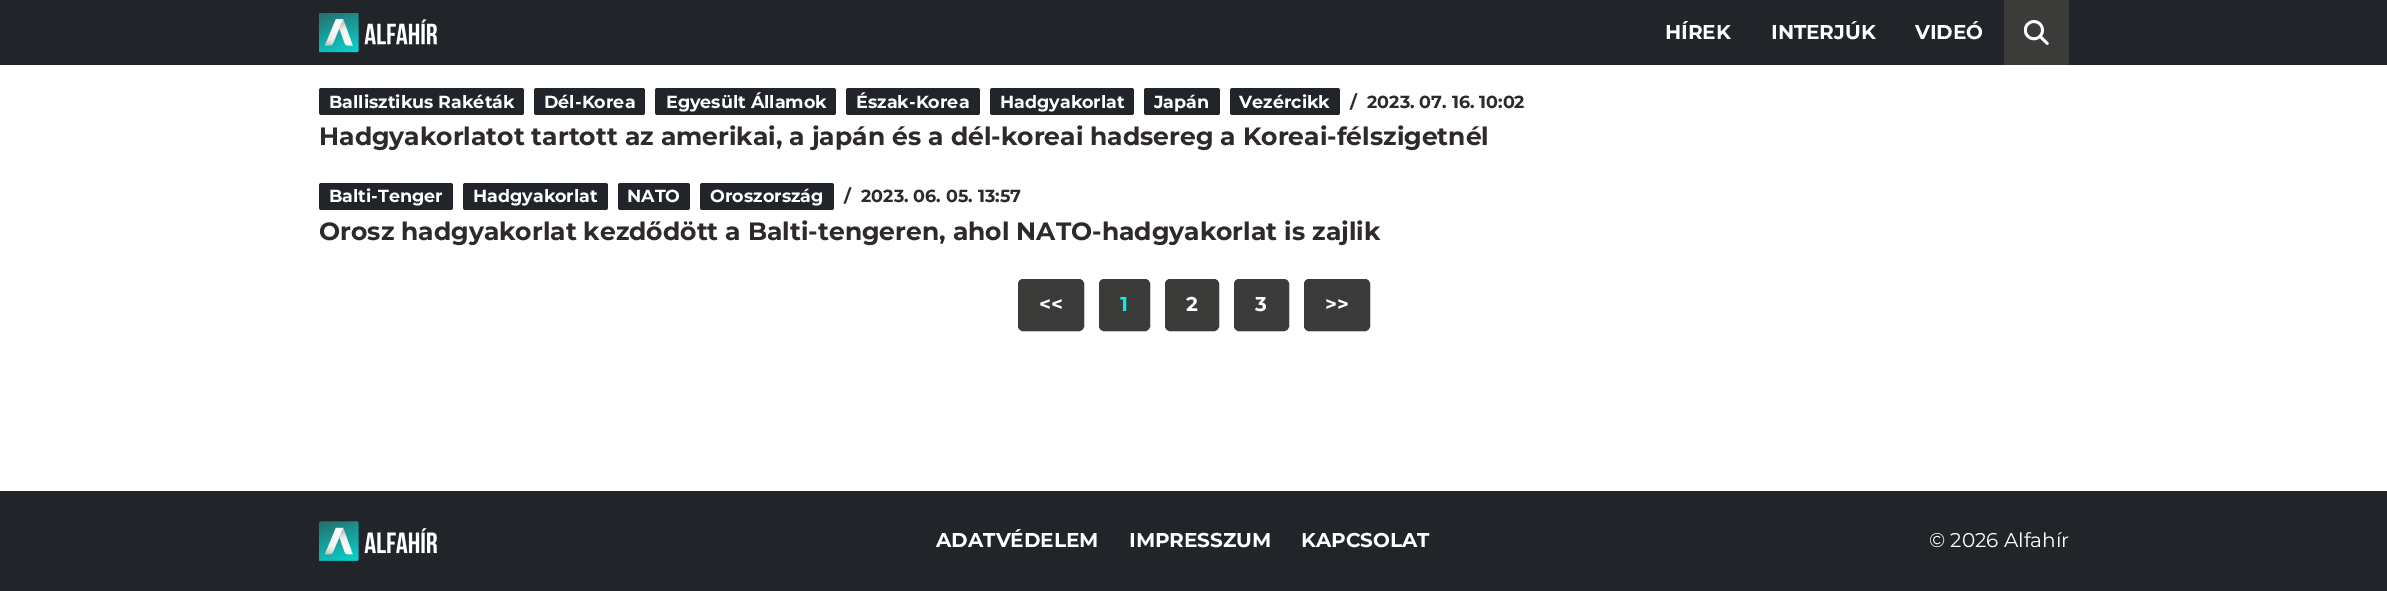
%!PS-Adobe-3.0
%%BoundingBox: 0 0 2387 591
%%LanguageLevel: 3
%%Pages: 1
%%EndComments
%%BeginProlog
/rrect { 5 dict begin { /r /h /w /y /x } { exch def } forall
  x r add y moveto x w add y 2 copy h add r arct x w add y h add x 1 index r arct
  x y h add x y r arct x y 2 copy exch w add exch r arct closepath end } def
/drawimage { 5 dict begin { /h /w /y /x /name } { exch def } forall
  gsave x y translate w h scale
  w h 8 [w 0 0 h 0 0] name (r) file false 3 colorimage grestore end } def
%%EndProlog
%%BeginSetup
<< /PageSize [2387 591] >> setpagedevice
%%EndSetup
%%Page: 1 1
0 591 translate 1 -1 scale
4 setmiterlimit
1 setgray
0 0 2387 591 rectfill
0.129 0.145 0.161 setrgbcolor
0 0 2387 65 rectfill
(images/1.raw) 319 13 118 40 drawimage
0.231 0.231 0.227 setrgbcolor
2004 0 65 65 rectfill
(images/2.raw) 2024 20 25 25 drawimage
0.129 0.145 0.161 setrgbcolor
319 88 205 27 2.5 rrect fill
534 88 111 27 2.5 rrect fill
655 88 181 27 2.5 rrect fill
846 88 134 27 2.5 rrect fill
990 88 144 27 2.5 rrect fill
1144 88 76 27 2.5 rrect fill
1230 88 110 27 2.5 rrect fill
319 183 134 27 2.5 rrect fill
463 183 145 27 2.5 rrect fill
618 183 72 27 2.5 rrect fill
700 183 134 27 2.5 rrect fill
0.231 0.231 0.227 setrgbcolor
1018.5 279.5 65 51 4.5 rrect gsave fill grestore
stroke
1099.5 279.5 50 51 4.5 rrect gsave fill grestore
stroke
1165.5 279.5 53 51 4.5 rrect gsave fill grestore
stroke
1234.5 279.5 54 51 4.5 rrect gsave fill grestore
stroke
1304.5 279.5 65 51 4.5 rrect gsave fill grestore
stroke
0.129 0.145 0.161 setrgbcolor
0 491 2387 100 rectfill
(images/3.raw) 319 521 118 40 drawimage
/Montserrat-Bold [20 0 0 -20 0 0] selectfont
1 setgray
1665 39 moveto (HÍREK) show
1771 39 moveto (INTERJÚK) show
1915 39 moveto (VIDEÓ) show
/Montserrat-Bold [17.5 0 0 -17.5 0 0] selectfont
329 108 moveto (Ballisztikus Rakéták) show
544 108 moveto (Dél-Korea) show
666 108 moveto (Egyesült Államok) show
856 108 moveto (Észak-Korea) show
1000 108 moveto (Hadgyakorlat) show
1154 108 moveto (Japán) show
1239 108 moveto (Vezércikk) show
0.18 0.161 0.165 setrgbcolor
1350 108 moveto (/) show
1367 108 moveto (2023. 07. 16. 10:02) show
/Montserrat-Bold [25 0 0 -25 0 0] selectfont
319 145 moveto (Hadgyakorlatot tartott az amerikai, a japán és a dél-koreai hadsereg a Koreai-félszigetnél) show
/Montserrat-Bold [17.5 0 0 -17.5 0 0] selectfont
1 setgray
329 202 moveto (Balti-Tenger) show
473 202 moveto (Hadgyakorlat) show
627 202 moveto (NATO) show
710 202 moveto (Oroszország) show
0.18 0.161 0.165 setrgbcolor
844 202 moveto (/) show
861 202 moveto (2023. 06. 05. 13:57) show
/Montserrat-Bold [25 0 0 -25 0 0] selectfont
319 240 moveto (Orosz hadgyakorlat kezdődött a Balti-tengeren, ahol NATO-hadgyakorlat is zajlik) show
/Montserrat-Bold [20 0 0 -20 0 0] selectfont
1 setgray
1039 311 moveto (<<) show
0 0.941 0.91 setrgbcolor
1120 311 moveto (1) show
1 setgray
1186 311 moveto (2) show
1255 311 moveto (3) show
1325 311 moveto (>>) show
936 547 moveto (ADATVÉDELEM) show
1129 547 moveto (IMPRESSZUM) show
1301 547 moveto (KAPCSOLAT) show
/Montserrat-Regular [20 0 0 -20 0 0] selectfont
1929 547 moveto (© 2026 Alfahír) show
showpage
%%EOF
